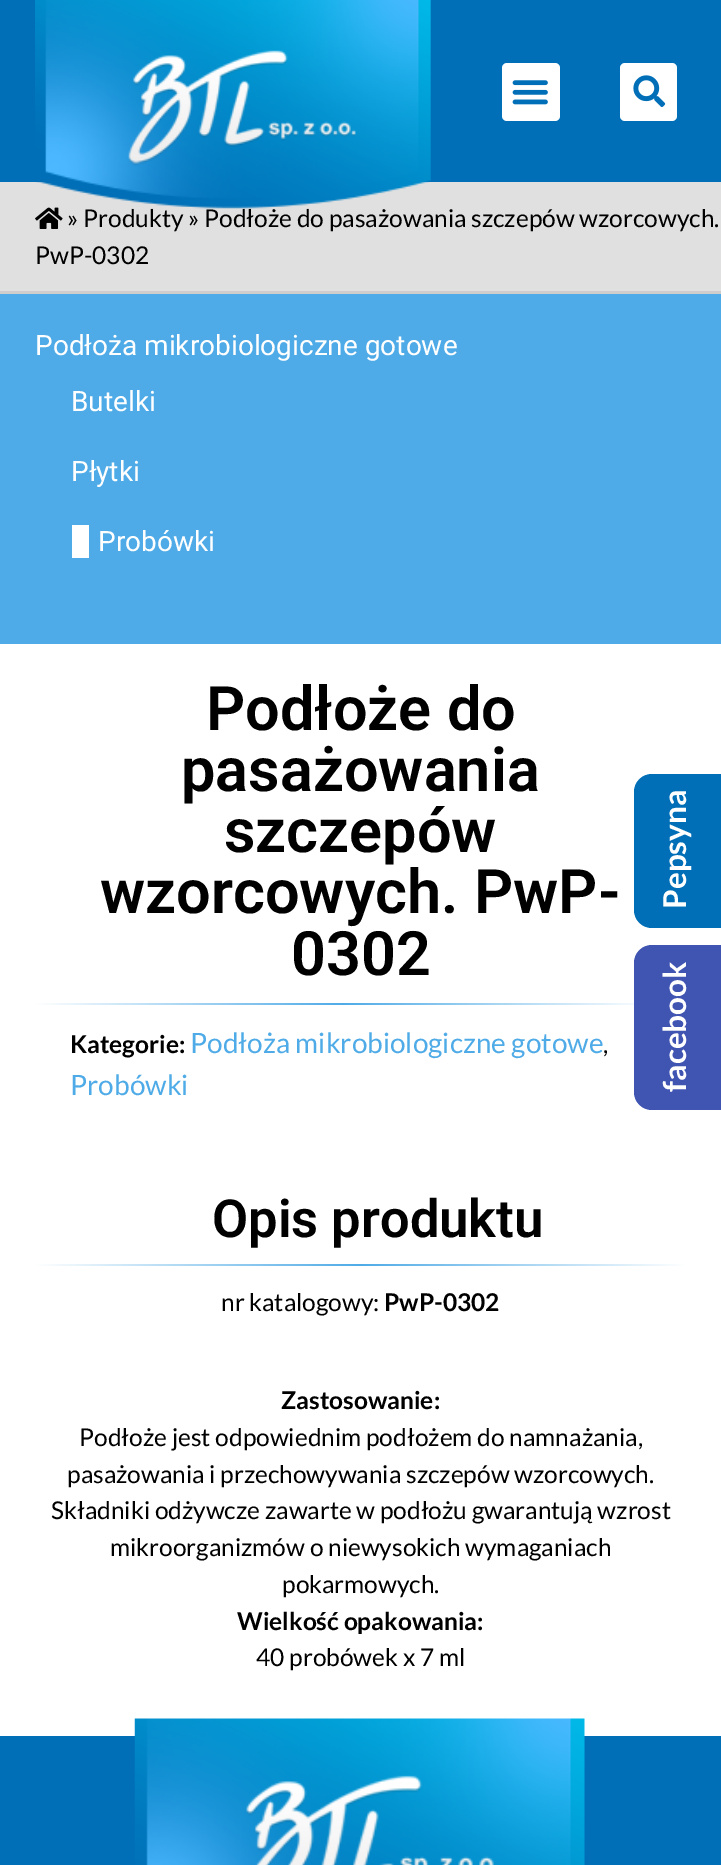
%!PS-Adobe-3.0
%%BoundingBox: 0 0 721 1865
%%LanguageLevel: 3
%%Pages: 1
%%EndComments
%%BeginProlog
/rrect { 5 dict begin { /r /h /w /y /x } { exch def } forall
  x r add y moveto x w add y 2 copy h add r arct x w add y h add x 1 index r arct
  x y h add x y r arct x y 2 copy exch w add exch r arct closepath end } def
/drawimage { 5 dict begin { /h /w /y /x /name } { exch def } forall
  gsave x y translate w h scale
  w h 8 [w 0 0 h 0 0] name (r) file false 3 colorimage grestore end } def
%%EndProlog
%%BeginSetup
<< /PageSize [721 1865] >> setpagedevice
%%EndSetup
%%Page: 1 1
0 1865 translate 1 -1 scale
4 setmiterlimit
1 setgray
0 0 721 1865 rectfill
0 0.435 0.718 setrgbcolor
0 0 721 182 rectfill
1 setgray
502 63 58 58 5 rrect fill
(images/2.raw) 512 80 36 25 drawimage
620 63 57 58 5 rrect fill
(images/3.raw) 633 75 33 33 drawimage
0.878 setgray
0 182 721 109 rectfill
0.812 0.8 0.8 setrgbcolor
0 291 721 3 rectfill
(images/4.raw) 35 207 28 22 drawimage
0.31 0.671 0.906 setrgbcolor
0 294 721 350 rectfill
1 setgray
72 525 17 33 rectfill
gsave newpath 35 1003 moveto 634 1003 lineto 634 1005 lineto 35 1005 lineto closepath clip newpath
<< /ShadingType 2 /ColorSpace /DeviceRGB /Coords [35 1004 651 1004] /Extend [true true] /Function << /FunctionType 3 /Domain [0 1] /Functions [<< /FunctionType 2 /Domain [0 1] /C0 [1 1 1] /C1 [0.31 0.671 0.906] /N 1 >> << /FunctionType 2 /Domain [0 1] /C0 [0.31 0.671 0.906] /C1 [1 1 1] /N 1 >>] /Bounds [0.5] /Encode [0 1 0 1] >> >> shfill grestore
gsave newpath 35 1264 moveto 686 1264 lineto 686 1266 lineto 35 1266 lineto closepath clip newpath
<< /ShadingType 2 /ColorSpace /DeviceRGB /Coords [35 1264 686 1264] /Extend [true true] /Function << /FunctionType 3 /Domain [0 1] /Functions [<< /FunctionType 2 /Domain [0 1] /C0 [1 1 1] /C1 [0.31 0.671 0.906] /N 1 >> << /FunctionType 2 /Domain [0 1] /C0 [0.31 0.671 0.906] /C1 [1 1 1] /N 1 >>] /Bounds [0.5] /Encode [0 1 0 1] >> >> shfill grestore
0 0.435 0.718 setrgbcolor
newpath 652 774 moveto 721 774 lineto 721 928 lineto 652 928 lineto 642 928 634 920 634 910 curveto 634 792 lineto 634 782 642 774 652 774 curveto closepath fill
0.251 0.329 0.698 setrgbcolor
newpath 652 945 moveto 721 945 lineto 721 1110 lineto 652 1110 lineto 642 1110 634 1102 634 1092 curveto 634 963 lineto 634 953 642 945 652 945 curveto closepath fill
0 0.435 0.718 setrgbcolor
0 1736 721 129 rectfill
(images/5.raw) 134 1718 451 147 drawimage
/Lato-Regular [24.5 0 0 -24.5 0 0] selectfont
0 setgray
67 227 moveto (» Produkty » Podłoże do pasażowania szczepów wzorcowych.) show
(images/1.raw) 35 0 396 209 drawimage
35 264 moveto (PwP-0302) show
/Roboto-Regular [28 0 0 -28 0 0] selectfont
1 setgray
35 355 moveto (Podłoża mikrobiologiczne gotowe) show
71 411 moveto (Butelki) show
71 481 moveto (Płytki) show
98 551 moveto (Probówki) show
/Roboto-SemiBold [61.25 0 0 -61.25 0 0] selectfont
0 setgray
206 730 moveto (Podłoże do) show
181 791 moveto (pasażowania) show
224 852 moveto (szczepów) show
100 913 moveto (wzorcowych. PwP-) show
291 975 moveto (0302) show
/Lato-Bold [24.5 0 0 -24.5 0 0] selectfont
70 1053 moveto (Kategorie:) show
/Lato-Regular [28 0 0 -28 0 0] selectfont
0.31 0.671 0.906 setrgbcolor
190 1053 moveto (Podłoża mikrobiologiczne gotowe) show
/Lato-Regular [24.5 0 0 -24.5 0 0] selectfont
0 setgray
603 1053 moveto (,) show
/Lato-Regular [28 0 0 -28 0 0] selectfont
0.31 0.671 0.906 setrgbcolor
70 1095 moveto (Probówki) show
/Roboto-SemiBold [52.5 0 0 -52.5 0 0] selectfont
0 setgray
212 1237 moveto (Opis produktu) show
/Lato-Regular [24.5 0 0 -24.5 0 0] selectfont
221 1311 moveto (nr katalogowy:) show
/Lato-Bold [24.5 0 0 -24.5 0 0] selectfont
384 1311 moveto (PwP-0302) show
281 1409 moveto (Zastosowanie:) show
/Lato-Regular [24.5 0 0 -24.5 0 0] selectfont
79 1446 moveto (Podłoże jest odpowiednim podłożem do namnażania,) show
67 1483 moveto (pasażowania i przechowywania szczepów wzorcowych.) show
51 1519 moveto (Składniki odżywcze zawarte w podłożu gwarantują wzrost) show
110 1556 moveto (mikroorganizmów o niewysokich wymaganiach) show
282 1593 moveto (pokarmowych.) show
/Lato-Bold [24.5 0 0 -24.5 0 0] selectfont
237 1630 moveto (Wielkość opakowania:) show
/Lato-Regular [24.5 0 0 -24.5 0 0] selectfont
256 1666 moveto (40 probówek x 7 ml) show
/Lato-Bold [31.5 0 0 -31.5 0 0] selectfont
1 setgray
gsave 686 909 translate -90 rotate 0 0 moveto (Pepsyna) show grestore
gsave 686 1092 translate -90 rotate 0 0 moveto (facebook) show grestore
showpage
%%EOF
